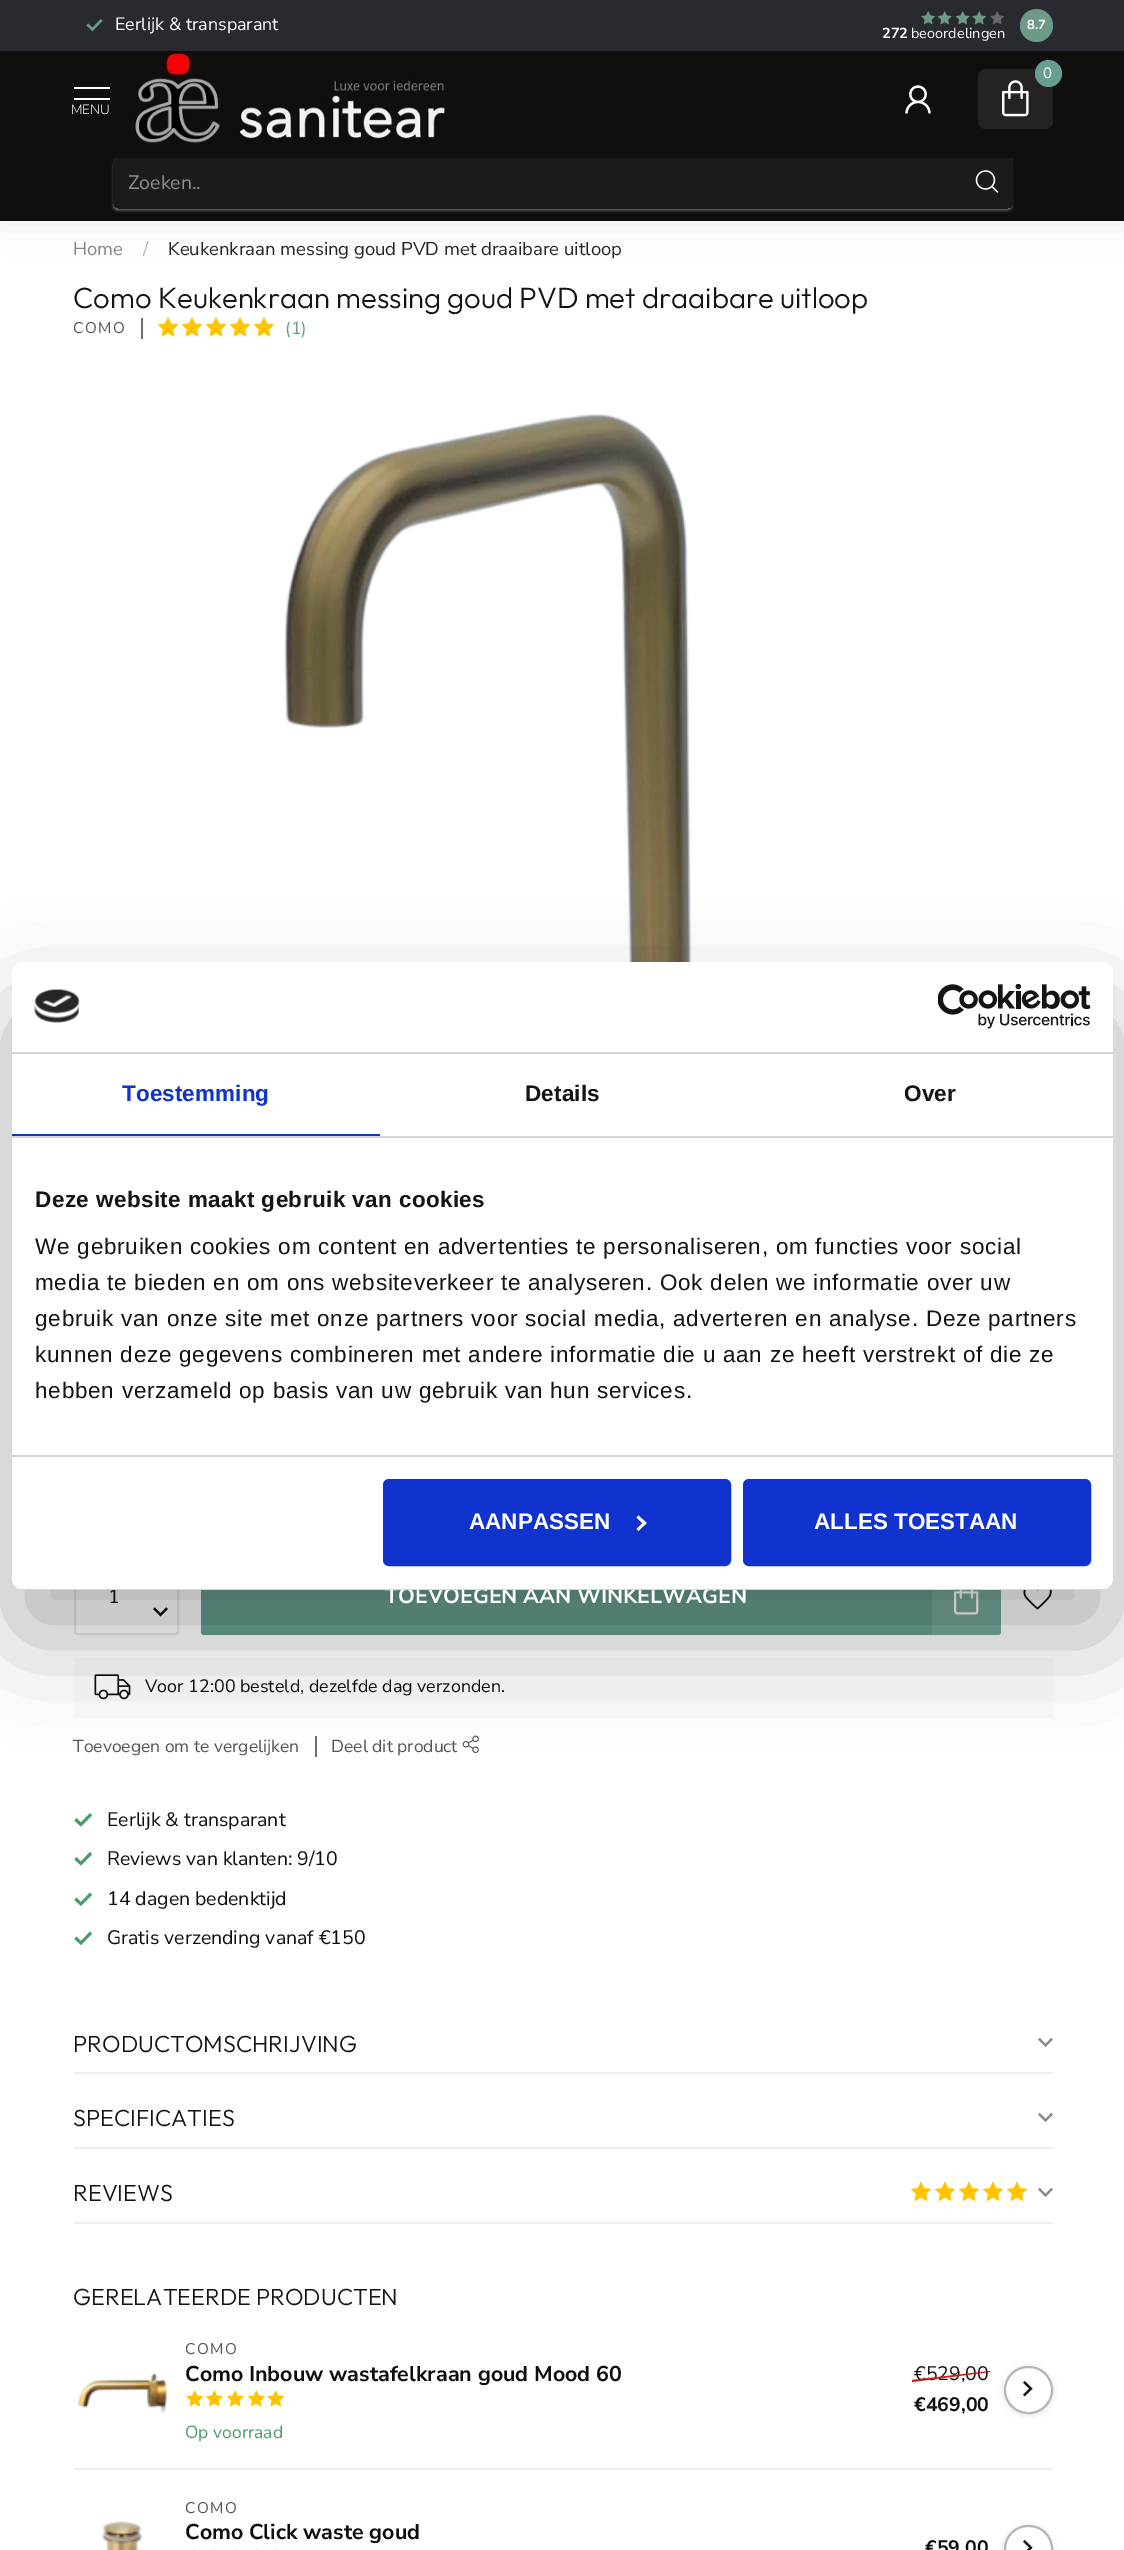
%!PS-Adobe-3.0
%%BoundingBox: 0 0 1124 2550
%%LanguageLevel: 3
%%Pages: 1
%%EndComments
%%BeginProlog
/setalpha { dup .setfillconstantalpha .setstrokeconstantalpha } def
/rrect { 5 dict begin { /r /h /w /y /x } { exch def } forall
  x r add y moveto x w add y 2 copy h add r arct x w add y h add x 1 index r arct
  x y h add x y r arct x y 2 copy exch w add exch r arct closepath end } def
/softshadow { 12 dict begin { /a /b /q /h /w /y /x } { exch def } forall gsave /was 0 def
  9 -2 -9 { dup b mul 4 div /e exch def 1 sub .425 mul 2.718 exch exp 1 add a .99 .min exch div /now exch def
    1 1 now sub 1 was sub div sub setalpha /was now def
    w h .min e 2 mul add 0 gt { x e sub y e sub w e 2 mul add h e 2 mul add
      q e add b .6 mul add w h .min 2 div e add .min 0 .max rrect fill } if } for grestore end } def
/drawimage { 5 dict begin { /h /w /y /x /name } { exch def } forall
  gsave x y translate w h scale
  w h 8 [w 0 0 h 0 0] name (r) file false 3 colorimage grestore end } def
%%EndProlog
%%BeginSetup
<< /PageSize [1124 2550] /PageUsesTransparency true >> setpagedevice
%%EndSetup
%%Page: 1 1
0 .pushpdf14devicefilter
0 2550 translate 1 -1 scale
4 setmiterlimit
1 setgray
0 0 1124 2550 rectfill
0.157 0.165 0.188 setrgbcolor
0 0 1124 51 rectfill
(images/1.raw) 86 19 17 13 drawimage
0.424 0.604 0.529 setrgbcolor
newpath 1036.5 25.5 16.5 0 360 arc closepath fill
(images/2.raw) 921 11 15 14 drawimage
(images/3.raw) 937 11 15 14 drawimage
(images/3.raw) 955 11 15 14 drawimage
(images/2.raw) 972 11 15 14 drawimage
(images/4.raw) 990 11 14 14 drawimage
0 setgray
0 147 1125 74 0 16.5 0.08 softshadow
0.063 0.059 0.051 setrgbcolor
0 51 1124 170 rectfill
(images/5.raw) 134 51 311 92 drawimage
0.141 0.137 0.129 setrgbcolor
978 69 75 60 8 rrect fill
0.4 0.624 0.569 setrgbcolor
newpath 1048.5 73.5 13.5 0 360 arc closepath fill
(images/6.raw) 1002 80 27 37 drawimage
(images/7.raw) 905 85 26 29 drawimage
1 setgray
74 87 36 2 rectfill
74 98 36 2 rectfill
gsave
newpath 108 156 moveto 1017 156 lineto 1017 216 lineto 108 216 lineto closepath 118 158 moveto 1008 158 lineto 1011 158 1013 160 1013 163 curveto 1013 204 lineto 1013 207 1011 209 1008 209 curveto 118 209 lineto 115 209 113 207 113 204 curveto 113 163 lineto 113 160 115 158 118 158 curveto closepath eoclip newpath
0.608 setgray
114 162 897 48 3 1.5 0.75 softshadow
grestore
0.05 setalpha
113 158 900 51 rectfill
1 setalpha
(images/8.raw) 975 170 24 23 drawimage
0.431 setgray
141 318 2 21 rectfill
(images/9.raw) 157 317 22 20 drawimage
(images/9.raw) 181 317 22 20 drawimage
(images/9.raw) 205 317 22 20 drawimage
(images/9.raw) 229 317 22 20 drawimage
(images/9.raw) 253 317 22 20 drawimage
(images/10.raw) 284 413 408 549 drawimage
0.91 setgray
2 setlinewidth
75 1561 103 73 2 rrect stroke
(images/11.raw) 153 1607 15 10 drawimage
0.4 0.624 0.569 setrgbcolor
201 1560 800 75 3 rrect fill
(images/12.raw) 954 1590 25 25 drawimage
0.1 setalpha
1 setgray
932 1590 69 45 rectfill
1 setalpha
(images/13.raw) 1023 1590 29 20 drawimage
0.98 setgray
74 1658 979 60 3 rrect fill
(images/14.raw) 94 1674 37 26 drawimage
0.431 setgray
315 1736 2 21 rectfill
(images/15.raw) 462 1735 17 19 drawimage
0.282 0.612 0.427 setrgbcolor
newpath 81 1826.5 moveto 74.5 1820.5 lineto 76.5 1818 lineto 81 1822.5 lineto 90 1813 lineto 92 1815.5 lineto closepath fill
newpath 81 1865.5 moveto 74.5 1859.5 lineto 76.5 1857 lineto 81 1861.5 lineto 90 1852 lineto 92 1854.5 lineto closepath fill
newpath 81 1906 moveto 74.5 1900 lineto 76.5 1897.5 lineto 81 1902 lineto 90 1892.5 lineto 92 1895 lineto closepath fill
newpath 81 1945 moveto 74.5 1939 lineto 76.5 1936.5 lineto 81 1941 lineto 90 1931.5 lineto 92 1934 lineto closepath fill
0.933 setgray
74 2072 979 2 rectfill
(images/16.raw) 1038 2037 15 10 drawimage
74 2147 979 2 rectfill
(images/16.raw) 1038 2112 15 10 drawimage
74 2222 979 2 rectfill
(images/17.raw) 910 2181 22 21 drawimage
(images/17.raw) 934 2181 22 21 drawimage
(images/17.raw) 958 2181 22 21 drawimage
(images/17.raw) 982 2181 22 21 drawimage
(images/17.raw) 1006 2181 22 21 drawimage
(images/16.raw) 1038 2187 15 10 drawimage
74 2468 979 2 rectfill
(images/18.raw) 77 2373 90 41 drawimage
(images/19.raw) 186 2390 18 17 drawimage
(images/20.raw) 205 2390 18 17 drawimage
(images/20.raw) 226 2390 18 17 drawimage
(images/20.raw) 247 2390 18 17 drawimage
(images/19.raw) 267 2390 18 17 drawimage
gsave
newpath 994 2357 moveto 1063 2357 lineto 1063 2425 lineto 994 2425 lineto closepath 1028 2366 moveto 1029 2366 lineto 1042.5 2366 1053 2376.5 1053 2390 curveto 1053 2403.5 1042.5 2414 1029 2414 curveto 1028 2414 lineto 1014.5 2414 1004 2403.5 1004 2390 curveto 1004 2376.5 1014.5 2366 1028 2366 curveto closepath eoclip newpath
0 setgray
1004 2367 49 48 24 3 0.1 softshadow
grestore
0.714 setgray
1005 2367 47 46 23 rrect stroke
(images/21.raw) 1023 2381 10 16 drawimage
(images/22.raw) 101 2521 42 29 drawimage
(images/23.raw) 194 2549 2 1 drawimage
0.878 setgray
214 2549 1 1 rectfill
235 2549 1 1 rectfill
256 2549 1 1 rectfill
(images/23.raw) 275 2549 2 1 drawimage
gsave
newpath 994 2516 moveto 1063 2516 lineto 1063 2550 lineto 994 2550 lineto closepath 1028 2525 moveto 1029 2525 lineto 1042.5 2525 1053 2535.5 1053 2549 curveto 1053 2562.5 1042.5 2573 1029 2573 curveto 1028 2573 lineto 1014.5 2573 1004 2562.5 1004 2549 curveto 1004 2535.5 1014.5 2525 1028 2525 curveto closepath eoclip newpath
0 setgray
1004 2526 49 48 24 3 0.1 softshadow
grestore
0.714 setgray
1005 2526 47 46 23 rrect stroke
(images/24.raw) 1023 2540 10 10 drawimage
0 setgray
12 1010 1101 628 12 51 0.3 softshadow
/NunitoSans-Regular [17.9 0 0 -17.9 0 0] selectfont
1 setgray
115 30 moveto (Eerlijk & transparant) show
/NunitoSans-Bold [13 0 0 -13 0 0] selectfont
1027 29 moveto (8.7) show
/NunitoSans-Bold [14.5 0 0 -14.5 0 0] selectfont
882 38 moveto (272) show
/NunitoSans-Regular [14.5 0 0 -14.5 0 0] selectfont
911 38 moveto (beoordelingen) show
/NunitoSans-Regular [15 0 0 -15 0 0] selectfont
1043 78 moveto (0) show
/NunitoSans-Light [13.5 0 0 -13.5 0 0] selectfont
71 114 moveto (MENU) show
/NunitoSans-Regular [19.5 0 0 -19.5 0 0] selectfont
0.565 0.561 0.557 setrgbcolor
128 189 moveto (Zoeken..) show
/NunitoSans-Regular [18.5 0 0 -18.5 0 0] selectfont
0.529 0.525 0.525 setrgbcolor
73 255 moveto (Home) show
0.718 0.714 0.714 setrgbcolor
143 255 moveto (/) show
0.149 0.145 0.145 setrgbcolor
168 255 moveto (Keukenkraan messing goud PVD met draaibare uitloop) show
/Outfit-Light [29.25 0 0 -29.25 0 0] selectfont
0.082 0.078 0.078 setrgbcolor
73 308 moveto (Como Keukenkraan messing goud PVD met draaibare uitloop) show
gsave
74 321 52 15 rectclip
/NunitoSans-Regular [15.5 0 0 -15.5 0 0] selectfont
0.337 setgray
73 333 moveto 1.5 0 (COMO) ashow
grestore
/NunitoSans-Regular [17.5 0 0 -17.5 0 0] selectfont
0.4 0.624 0.569 setrgbcolor
285 334 moveto (\(1\)) show
/NunitoSans-Regular [19.5 0 0 -19.5 0 0] selectfont
0.055 0.051 0.051 setrgbcolor
108 1603 moveto (1) show
/NunitoSans-Bold [21.45 0 0 -21.45 0 0] selectfont
1 setgray
385 1603 moveto (TOEVOEGEN AAN WINKELWAGEN) show
/NunitoSans-Regular [17.9 0 0 -17.9 0 0] selectfont
0.055 0.051 0.051 setrgbcolor
145 1692 moveto (Voor 12:00 besteld, dezelfde dag verzonden.) show
/NunitoSans-Regular [17.5 0 0 -17.5 0 0] selectfont
0.337 setgray
73 1752 moveto (Toevoegen om te vergelijken) show
331 1752 moveto (Deel dit product) show
/NunitoSans-Regular [19.5 0 0 -19.5 0 0] selectfont
0.055 0.051 0.051 setrgbcolor
107 1826 moveto (Eerlijk & transparant) show
107 1865 moveto (Reviews van klanten: 9/10) show
107 1905 moveto (14 dagen bedenktijd) show
107 1944 moveto (Gratis verzending vanaf €150) show
/Outfit-Light [23.4 0 0 -23.4 0 0] selectfont
0.082 0.078 0.078 setrgbcolor
73 2052 moveto (PRODUCTOMSCHRIJVING) show
73 2126 moveto (SPECIFICATIES) show
73 2201 moveto (REVIEWS) show
73 2305 moveto (GERELATEERDE PRODUCTEN) show
/NunitoSans-Regular [15.5 0 0 -15.5 0 0] selectfont
0.337 setgray
185 2354 moveto 1.5 0 (COMO) ashow
/NunitoSans-Bold [21.45 0 0 -21.45 0 0] selectfont
0.055 0.051 0.051 setrgbcolor
185 2381 moveto (Como Inbouw wastafelkraan goud Mood 60) show
/NunitoSans-Regular [17.5 0 0 -17.5 0 0] selectfont
0.282 0.612 0.427 setrgbcolor
185 2438 moveto (Op voorraad) show
/NunitoSans-Regular [19.5 0 0 -19.5 0 0] selectfont
0.055 0.051 0.051 setrgbcolor
914 2380 moveto (€529,00) show
0.765 0.118 0.118 setrgbcolor
newpath 912 2380 moveto 990 2371 lineto 990 2372 lineto 912 2382 lineto closepath fill
/NunitoSans-Bold [19.5 0 0 -19.5 0 0] selectfont
0.055 0.051 0.051 setrgbcolor
914 2411 moveto (€469,00) show
/NunitoSans-Regular [15.5 0 0 -15.5 0 0] selectfont
0.337 setgray
185 2513 moveto 1.5 0 (COMO) ashow
/NunitoSans-Bold [21.45 0 0 -21.45 0 0] selectfont
0.055 0.051 0.051 setrgbcolor
185 2539 moveto (Como Click waste goud) show
/NunitoSans-Bold [19.5 0 0 -19.5 0 0] selectfont
925 2554 moveto (€59,00) show
1 setgray
12 962 1101 628 12 rrect fill
0.839 setgray
12 1052 1101 2 rectfill
(images/25.raw) 34 989 46 34 drawimage
(images/26.raw) 938 984 153 45 drawimage
12 1136 1101 2 rectfill
0.063 0.196 0.812 setrgbcolor
12 1134 368 2 rectfill
/LiberationSans-Bold [22.5 0 0 -22.5 0 0] selectfont
122 1101 moveto 0.1 0 (Toestemming) ashow
0.082 0.078 0.078 setrgbcolor
525 1101 moveto 0.1 0 (Details) ashow
904 1101 moveto 0.1 0 (Over) ashow
0.839 setgray
12 1455 1101 2 rectfill
0.082 0.078 0.078 setrgbcolor
35 1207 moveto 0.4 0 (Deze website maakt gebruik van cookies) ashow
/LiberationSans-Regular [22.5 0 0 -22.5 0 0] selectfont
35 1254 moveto 0.75 0 (We gebruiken cookies om content en advertenties te personaliseren, om functies voor social) ashow
35 1290 moveto 0.75 0 (media te bieden en om ons websiteverkeer te analyseren. Ook delen we informatie over uw) ashow
35 1326 moveto 0.75 0 (gebruik van onze site met onze partners voor social media, adverteren en analyse. Deze partners) ashow
35 1362 moveto 0.75 0 (kunnen deze gegevens combineren met andere informatie die u aan ze heeft verstrekt of die ze) ashow
35 1398 moveto 0.75 0 (hebben verzameld op basis van uw gebruik van hun services.) ashow
gsave
12 962 1101 628 12 rrect clip newpath
0.839 setgray
12 1589 1101 1 rectfill
grestore
0.063 0.196 0.812 setrgbcolor
384.5 1480.5 345 84 4.5 rrect gsave fill grestore
3 setlinewidth
stroke
/LiberationSans-Bold [22.5 0 0 -22.5 0 0] selectfont
1 setgray
469 1529 moveto (AANPASSEN) show
newpath 638.5 1515.5 moveto 646.5 1523 lineto 644.5 1525.5 lineto 636.5 1517.5 lineto closepath fill
newpath 644.5 1521 moveto 646.5 1523 lineto 638.5 1531 lineto 636.5 1529 lineto closepath fill
0.063 0.196 0.812 setrgbcolor
744.5 1480.5 345 84 4.5 rrect gsave fill grestore
stroke
1 setgray
814 1529 moveto (ALLES TOESTAAN) show
.poppdf14devicefilter showpage
%%EOF
